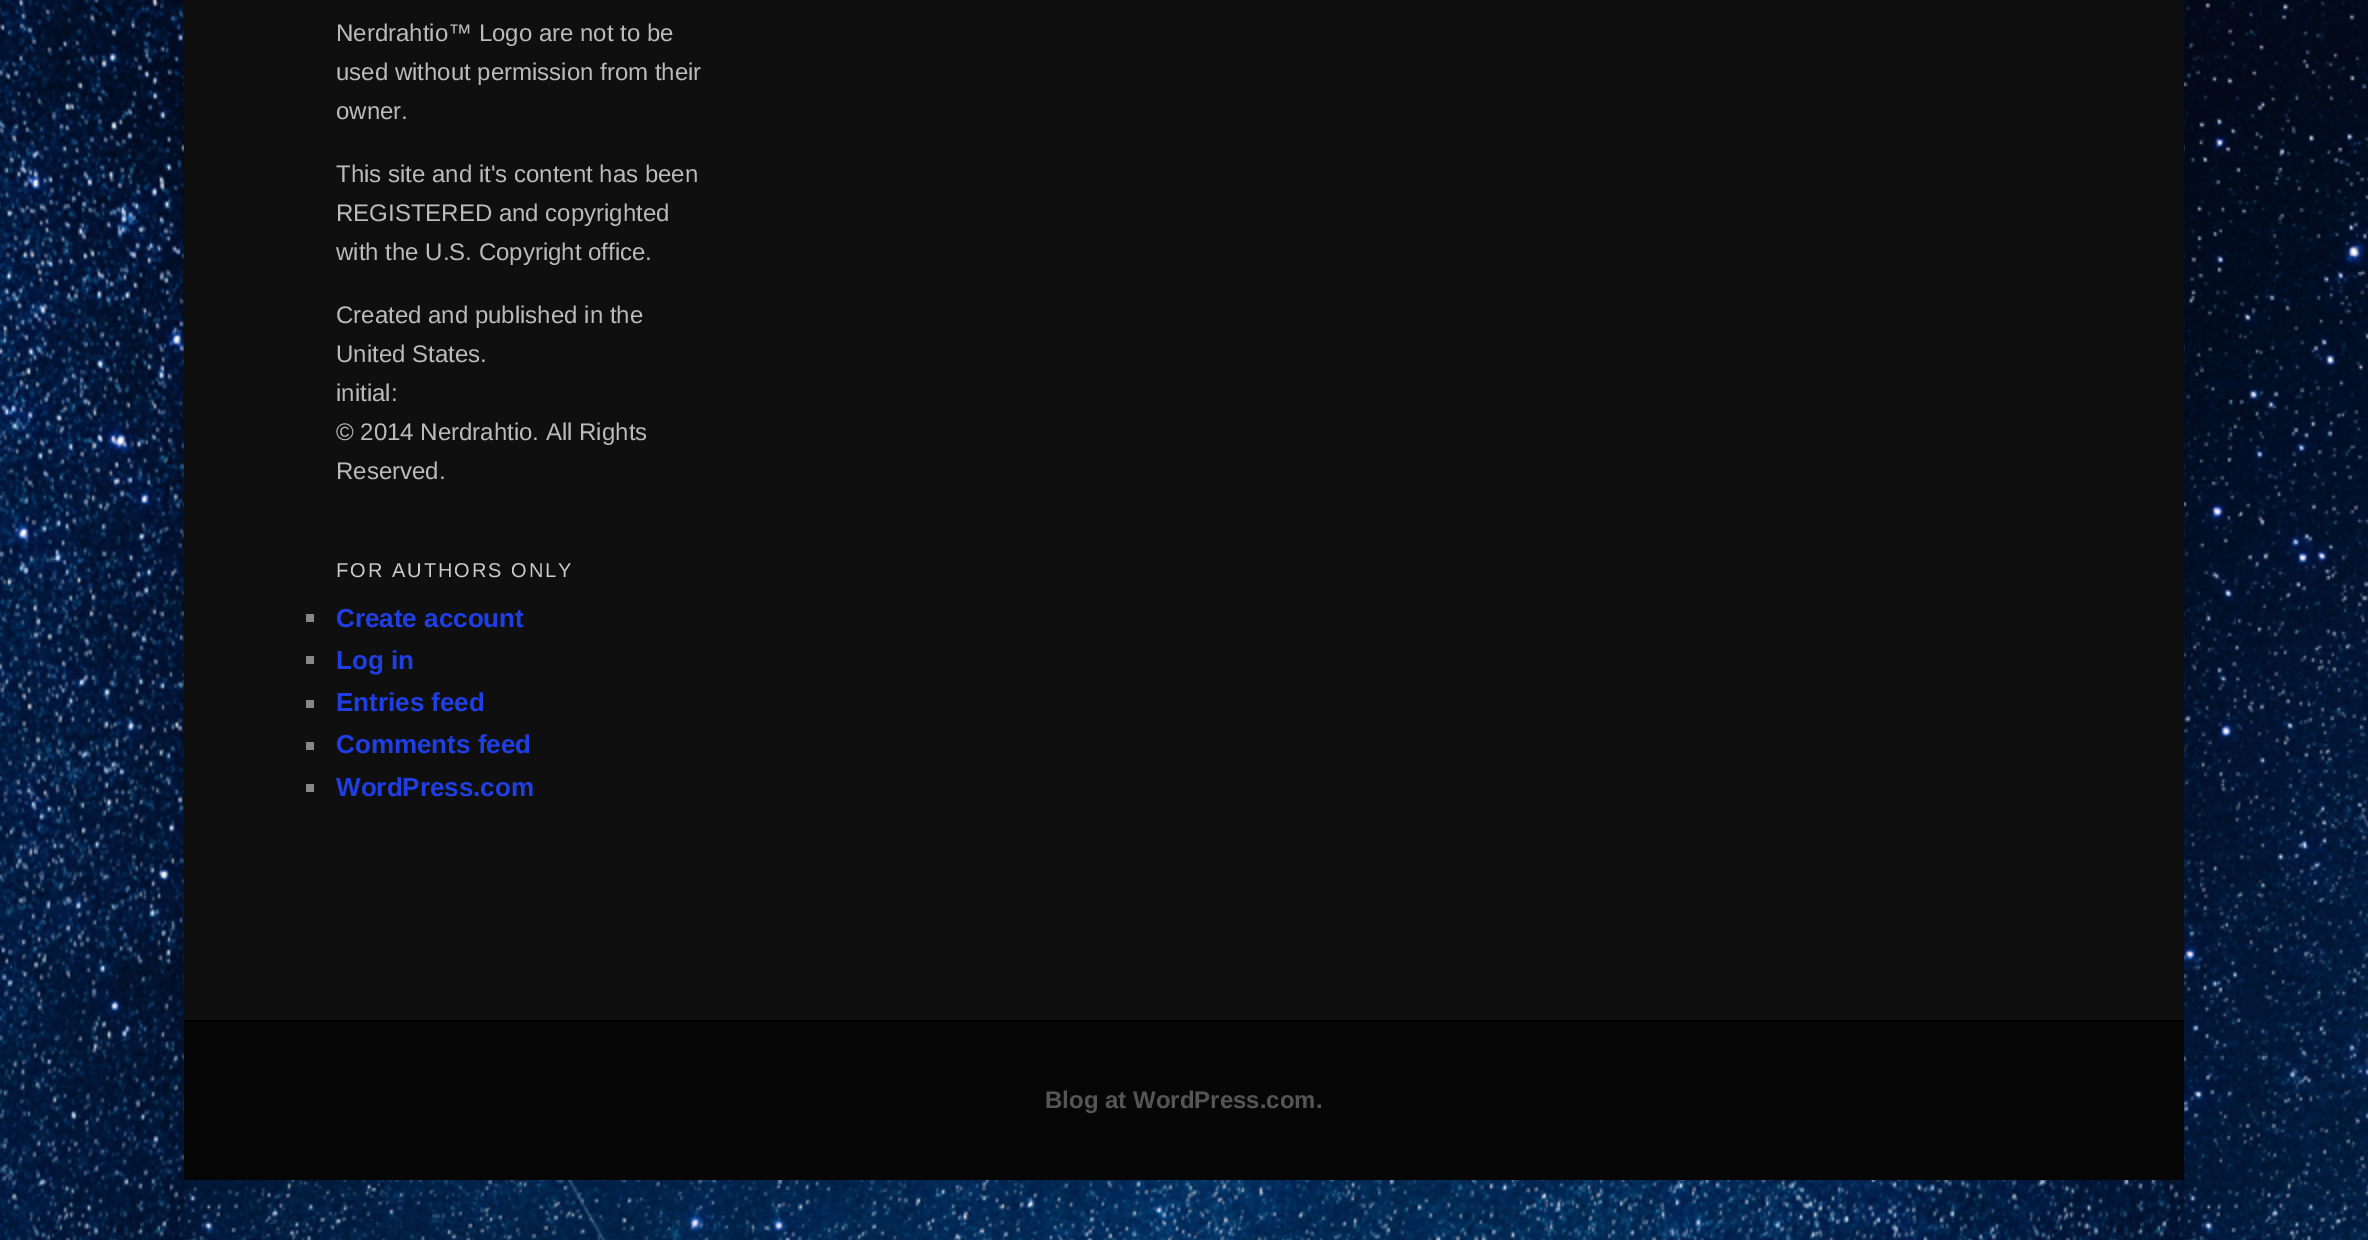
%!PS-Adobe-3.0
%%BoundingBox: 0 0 2368 1240
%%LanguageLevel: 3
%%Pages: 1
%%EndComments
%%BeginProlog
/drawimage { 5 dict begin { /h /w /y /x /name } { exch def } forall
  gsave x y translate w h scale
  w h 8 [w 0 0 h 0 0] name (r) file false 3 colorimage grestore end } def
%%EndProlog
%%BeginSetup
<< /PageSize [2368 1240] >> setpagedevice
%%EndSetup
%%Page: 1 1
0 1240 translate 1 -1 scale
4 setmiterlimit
1 setgray
0 0 2368 1240 rectfill
(images/1.raw) 0 0 2368 1240 drawimage
0.059 setgray
184 0 2000 1020 rectfill
0.533 setgray
306 614 8 8 rectfill
306 656 8 8 rectfill
306 700 8 8 rectfill
306 742 8 8 rectfill
306 784 8 8 rectfill
0.024 setgray
184 1022 2000 158 rectfill
0 setgray
184 1020 2000 2 rectfill
/LiberationSans-Regular [24 0 0 -24 0 0] selectfont
0.733 setgray
336 41 moveto (Nerdrahtio™ Logo are not to be) show
336 80 moveto (used without permission from their) show
336 119 moveto (owner.) show
336 182 moveto (This site and it's content has been) show
336 221 moveto (REGISTERED and copyrighted) show
336 260 moveto (with the U.S. Copyright office.) show
336 323 moveto (Created and published in the) show
336 362 moveto (United States.) show
336 401 moveto (initial:) show
336 440 moveto (© 2014 Nerdrahtio. All Rights) show
336 479 moveto (Reserved.) show
/LiberationSans-Regular [20 0 0 -20 0 0] selectfont
0.8 setgray
336 577 moveto 2 0 (FOR AUTHORS ONLY) ashow
/LiberationSans-Bold [26 0 0 -26 0 0] selectfont
0.122 0.247 0.894 setrgbcolor
336 627 moveto (Create account) show
336 669 moveto (Log in) show
336 711 moveto (Entries feed) show
336 753 moveto (Comments feed) show
336 796 moveto (WordPress.com) show
/LiberationSans-Bold [24 0 0 -24 0 0] selectfont
0.333 setgray
1045 1108 moveto (Blog at WordPress.com.) show
showpage
%%EOF
